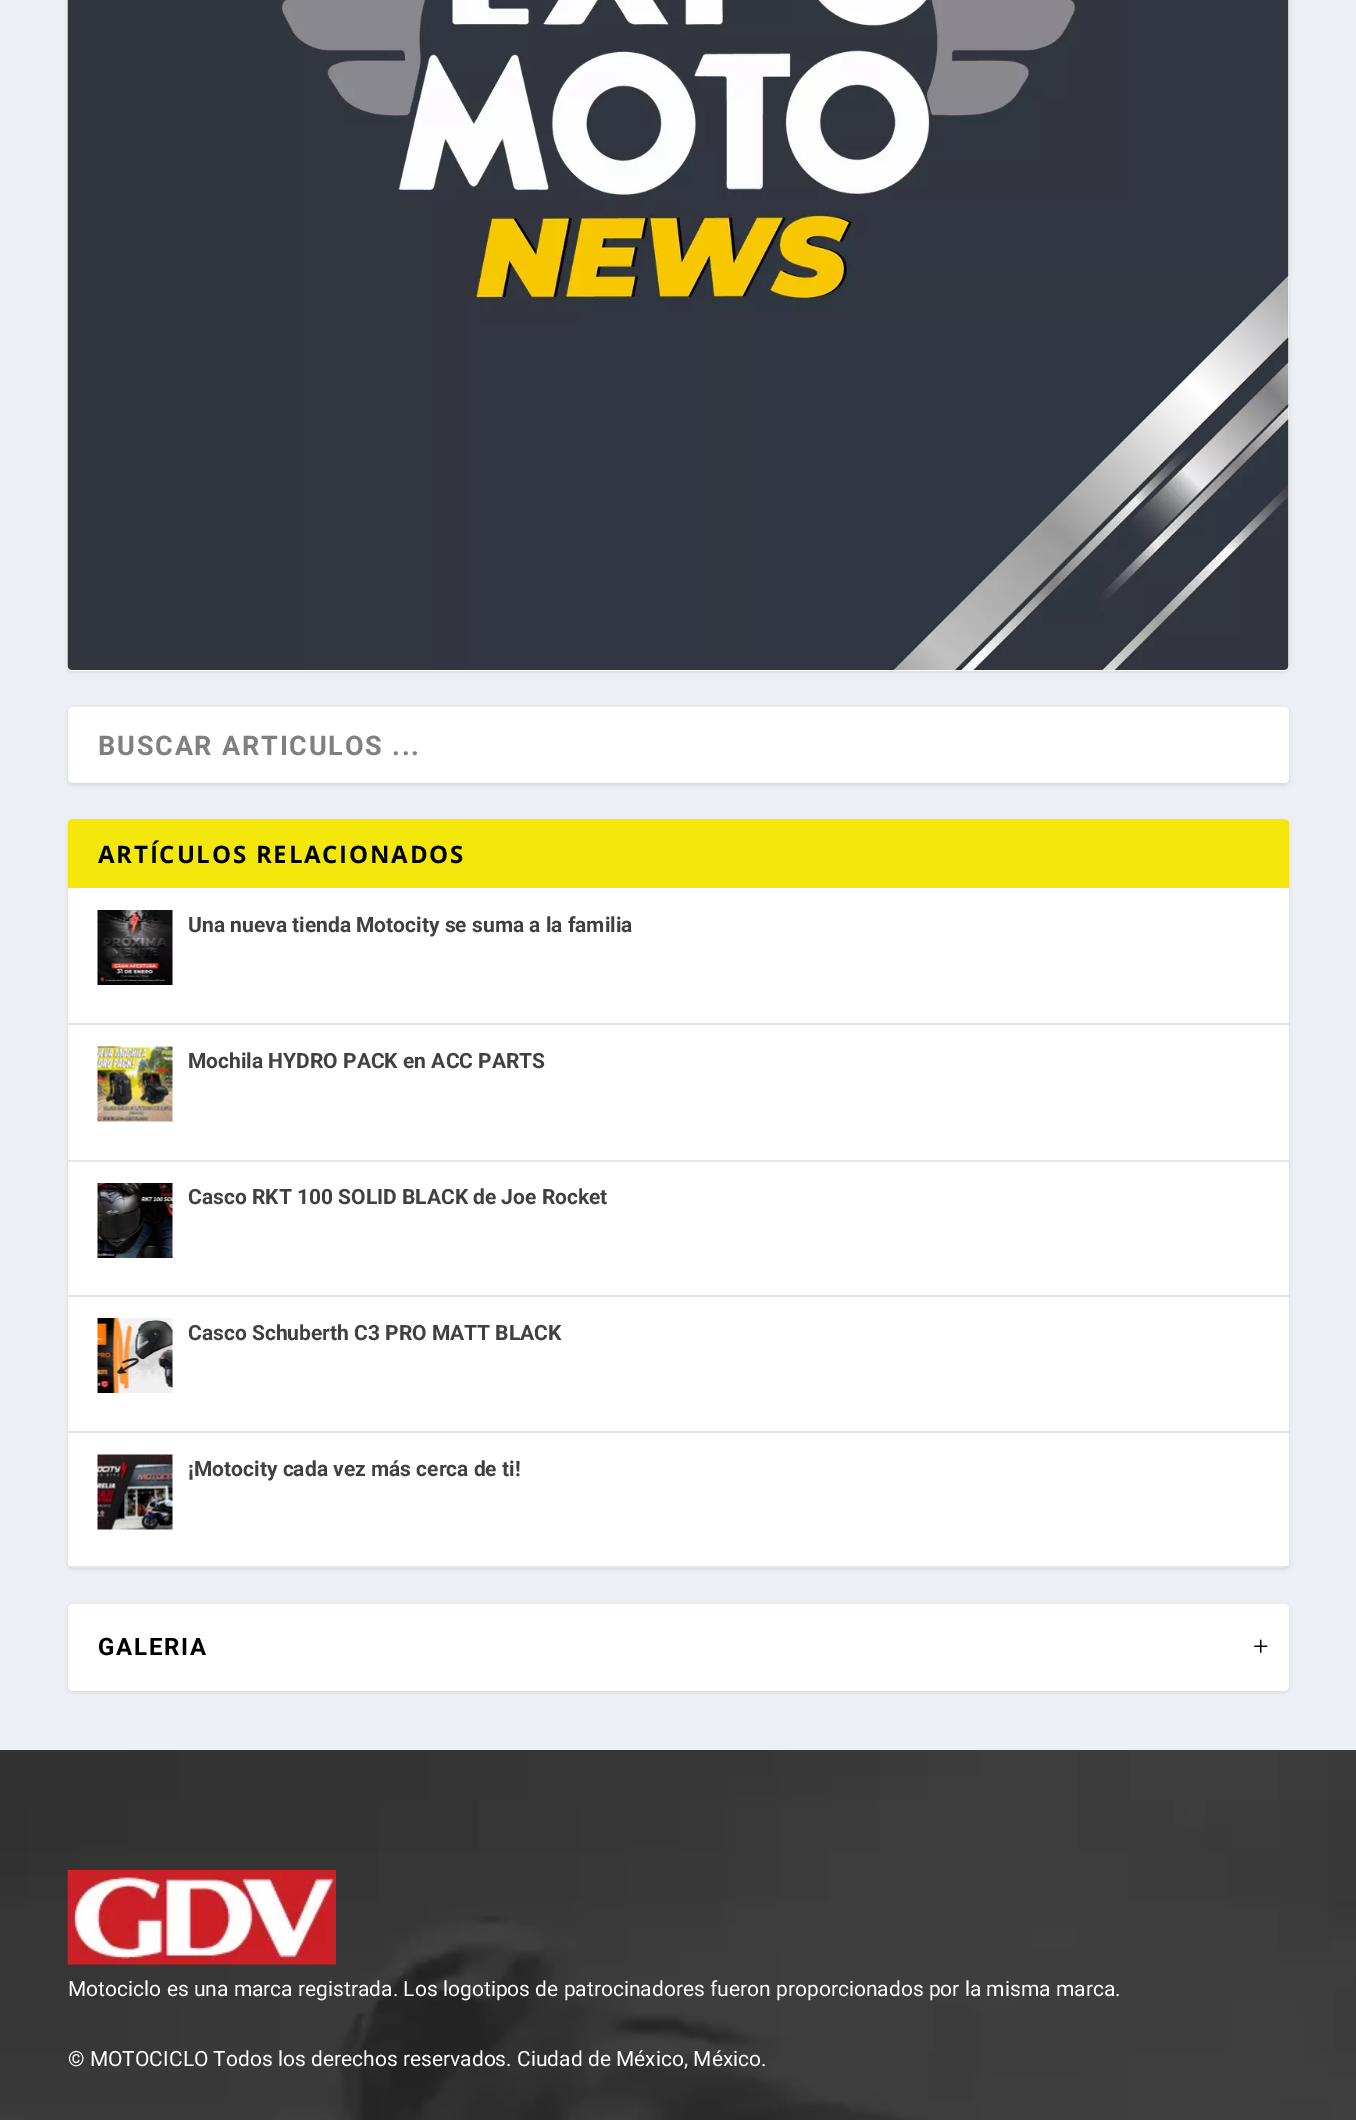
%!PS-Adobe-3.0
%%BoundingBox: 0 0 1356 2120
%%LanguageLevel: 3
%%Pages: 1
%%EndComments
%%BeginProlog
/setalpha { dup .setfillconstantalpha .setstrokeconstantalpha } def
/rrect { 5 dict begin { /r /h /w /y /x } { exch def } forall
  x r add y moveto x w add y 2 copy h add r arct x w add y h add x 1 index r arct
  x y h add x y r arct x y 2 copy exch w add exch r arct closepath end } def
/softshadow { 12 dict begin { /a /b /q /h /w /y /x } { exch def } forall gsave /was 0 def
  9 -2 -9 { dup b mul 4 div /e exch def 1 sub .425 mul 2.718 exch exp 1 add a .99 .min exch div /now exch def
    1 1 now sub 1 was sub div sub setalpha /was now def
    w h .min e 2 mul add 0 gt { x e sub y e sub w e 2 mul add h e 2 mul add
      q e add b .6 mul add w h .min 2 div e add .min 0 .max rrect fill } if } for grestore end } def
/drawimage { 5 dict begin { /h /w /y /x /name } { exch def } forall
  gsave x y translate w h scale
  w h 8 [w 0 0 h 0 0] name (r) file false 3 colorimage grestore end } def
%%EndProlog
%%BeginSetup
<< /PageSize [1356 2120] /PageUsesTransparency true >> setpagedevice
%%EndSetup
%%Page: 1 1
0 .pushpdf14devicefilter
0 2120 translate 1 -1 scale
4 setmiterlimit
0.925 0.941 0.961 setrgbcolor
0 0 1356 2120 rectfill
0 setgray
68 -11 1221 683 5 2 0.1 softshadow
1 setgray
68 -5 1221 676 5 rrect fill
(images/1.raw) 67 0 1222 670 drawimage
0 setgray
68 708 1221 77 5 2 0.1 softshadow
1 setgray
68 707 1221 76 5 rrect fill
0 setgray
68 821 1221 748 5 2 0.1 softshadow
1 setgray
68 819 1221 749 5 rrect fill
0.957 0.91 0.043 setrgbcolor
newpath 73 819 moveto 1284 819 lineto 1287 819 1289 821 1289 824 curveto 1289 888 lineto 68 888 lineto 68 824 lineto 68 821 70 819 73 819 curveto closepath fill
0.902 setgray
68 1023 1221 2 rectfill
(images/2.raw) 97 910 76 75 drawimage
68 1160 1221 2 rectfill
(images/3.raw) 97 1046 76 76 drawimage
68 1295 1221 2 rectfill
(images/4.raw) 97 1183 76 75 drawimage
68 1431 1221 2 rectfill
(images/5.raw) 97 1318 76 75 drawimage
gsave
68 819 1221 749 5 rrect clip newpath
0.1 setalpha
0 setgray
68 1566 1221 2 rectfill
grestore
(images/6.raw) 97 1454 76 76 drawimage
0 setgray
68 1605 1221 87 5 2 0.1 softshadow
1 setgray
68 1604 1221 87 5 rrect fill
(images/7.raw) 1254 1639 14 14 drawimage
(images/8.raw) 0 1750 1356 370 drawimage
(images/9.raw) 67 1870 269 95 drawimage
/Roboto-Bold [27 0 0 -27 0 0] selectfont
0.502 setgray
98 755 moveto 1.8 0 (BUSCAR ARTICULOS ...) ashow
/OpenSans-Bold [24 0 0 -24 0 0] selectfont
0 setgray
98 863 moveto 1.8 0 (ARTÍCULOS RELACIONADOS) ashow
/Roboto-Bold [21 0 0 -21 0 0] selectfont
0.251 setgray
188 932 moveto (Una nueva tienda Motocity se suma a la familia) show
188 1068 moveto (Mochila HYDRO PACK en ACC PARTS) show
188 1204 moveto (Casco RKT 100 SOLID BLACK de Joe Rocket) show
188 1340 moveto (Casco Schuberth C3 PRO MATT BLACK) show
188 1476 moveto (¡Motocity cada vez más cerca de ti!) show
/Roboto-Bold [24 0 0 -24 0 0] selectfont
0 setgray
98 1655 moveto 1.8 0 (GALERIA) ashow
/Roboto-Regular [21 0 0 -21 0 0] selectfont
1 setgray
68 1996 moveto (Motociclo es una marca registrada. Los logotipos de patrocinadores fueron proporcionados por la misma marca.) show
68 2066 moveto (© MOTOCICLO Todos los derechos reservados. Ciudad de México, México.) show
.poppdf14devicefilter showpage
%%EOF
